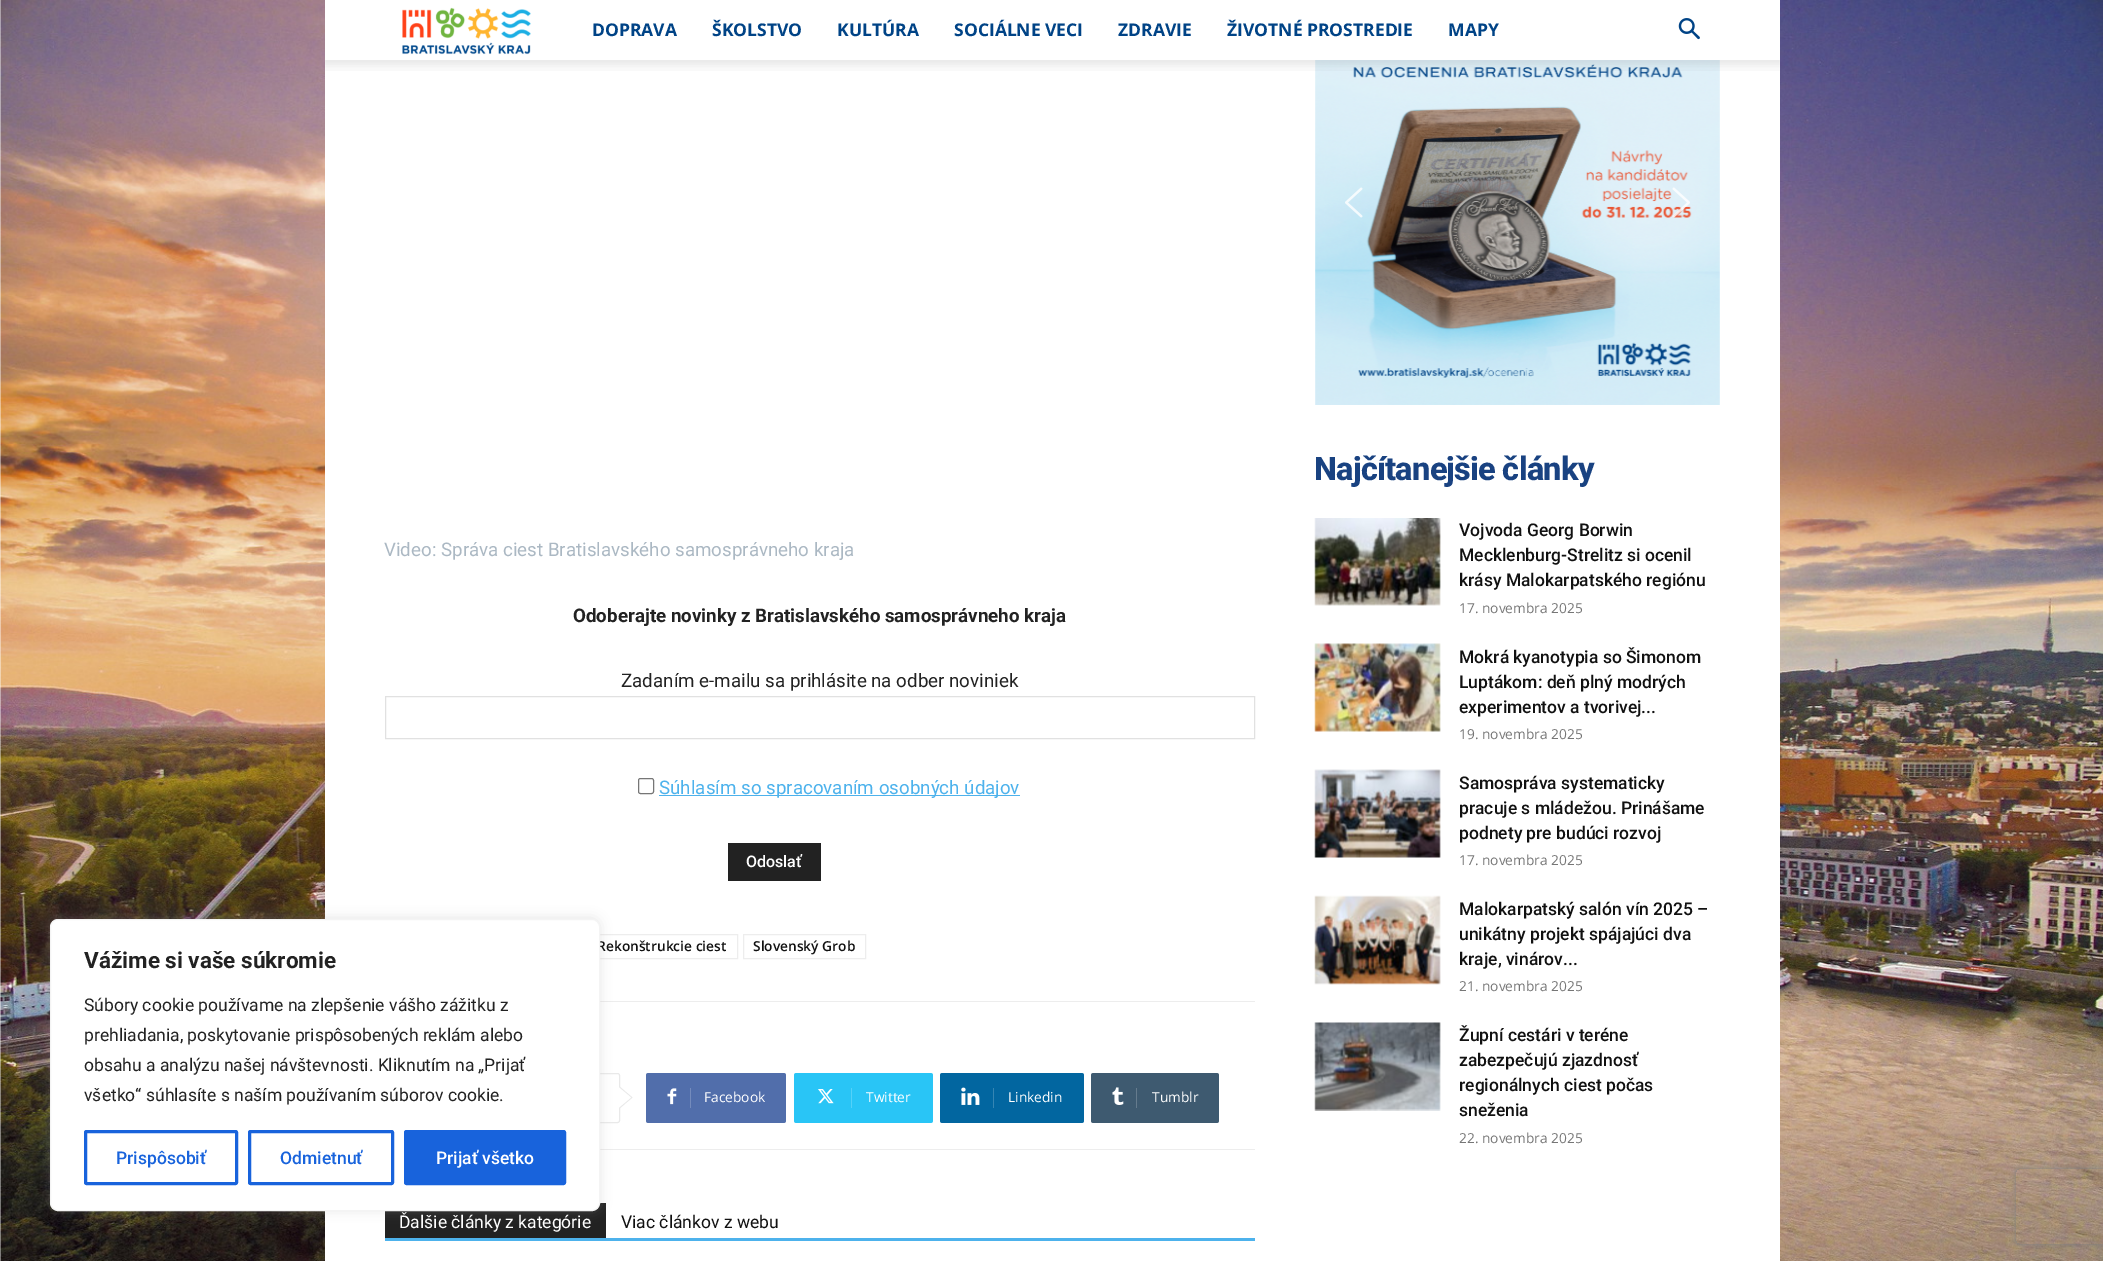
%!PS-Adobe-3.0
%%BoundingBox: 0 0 2103 1261
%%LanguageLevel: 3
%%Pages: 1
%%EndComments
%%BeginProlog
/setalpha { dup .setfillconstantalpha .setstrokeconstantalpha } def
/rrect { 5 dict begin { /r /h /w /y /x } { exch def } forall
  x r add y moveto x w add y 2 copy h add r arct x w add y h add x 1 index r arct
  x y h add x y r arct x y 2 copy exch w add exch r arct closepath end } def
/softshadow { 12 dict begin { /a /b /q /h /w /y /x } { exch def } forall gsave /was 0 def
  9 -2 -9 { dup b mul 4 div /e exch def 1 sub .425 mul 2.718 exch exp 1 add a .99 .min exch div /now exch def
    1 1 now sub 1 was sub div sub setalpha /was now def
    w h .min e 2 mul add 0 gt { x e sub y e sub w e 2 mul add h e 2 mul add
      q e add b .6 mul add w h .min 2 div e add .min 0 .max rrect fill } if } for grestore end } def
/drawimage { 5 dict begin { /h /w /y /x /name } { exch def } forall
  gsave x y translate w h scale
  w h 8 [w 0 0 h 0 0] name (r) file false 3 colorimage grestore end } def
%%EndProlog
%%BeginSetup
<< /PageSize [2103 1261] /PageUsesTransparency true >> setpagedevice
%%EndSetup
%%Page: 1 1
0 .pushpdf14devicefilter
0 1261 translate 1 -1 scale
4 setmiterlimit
1 setgray
0 0 2103 1261 rectfill
(images/1.raw) 0 0 2103 1261 drawimage
325 0 1455 1261 rectfill
0.929 setgray
585.5 934.5 152 24 rectstroke
600 1001 655 1 rectfill
600 1149 655 1 rectfill
0.914 setgray
385.5 1073.5 234 49 2 rrect stroke
0.133 setgray
385 1203 221 35 rectfill
0.675 0.671 0.671 setrgbcolor
50 918 550 292 8 6 0.3 softshadow
(images/2.raw) 402 7 129 48 drawimage
(images/3.raw) 1678 18 22 22 drawimage
(images/9.raw) 1315 60 405 345 drawimage
(images/4.raw) 325 60 1455 11 drawimage
0.882 setgray
385.5 696.5 869 42 rectstroke
0.463 setgray
638.5 778.5 15 15 2 rrect stroke
0.302 0.698 0.925 setrgbcolor
659 795 361 1 rectfill
0.133 setgray
728 843 93 38 rectfill
0.929 setgray
743.5 934.5 122 24 rectstroke
0.914 setgray
newpath 619 1109 moveto 619 1086 lineto 632.5 1097.5 lineto closepath fill
1 setgray
newpath 619 1107.5 moveto 619 1087.5 lineto 631 1097.5 lineto closepath fill
0.318 0.431 0.671 setrgbcolor
newpath 690 1073 moveto 783.5 1073 lineto 785 1073 786 1074 786 1075.5 curveto 786 1120.5 lineto 786 1122 785 1123 783.5 1123 curveto 690 1123 lineto closepath fill
newpath 648.5 1073 moveto 698 1073 lineto 698 1123 lineto 648.5 1123 lineto 647 1123 646 1122 646 1120.5 curveto 646 1075.5 lineto 646 1074 647 1073 648.5 1073 curveto closepath fill
(images/5.raw) 667 1088 10 17 drawimage
0.455 0.545 0.737 setrgbcolor
690 1088 1 20 rectfill
0.161 0.773 0.965 setrgbcolor
newpath 851 1073 moveto 930.5 1073 lineto 932 1073 933 1074 933 1075.5 curveto 933 1120.5 lineto 933 1122 932 1123 930.5 1123 curveto 851 1123 lineto closepath fill
newpath 796.5 1073 moveto 859 1073 lineto 859 1123 lineto 796.5 1123 lineto 795 1123 794 1122 794 1120.5 curveto 794 1075.5 lineto 794 1074 795 1073 796.5 1073 curveto closepath fill
(images/6.raw) 818 1089 16 15 drawimage
0.329 0.82 0.973 setrgbcolor
851 1088 1 20 rectfill
0.008 0.4 0.627 setrgbcolor
newpath 993 1073 moveto 1081.5 1073 lineto 1083 1073 1084 1074 1084 1075.5 curveto 1084 1120.5 lineto 1084 1122 1083 1123 1081.5 1123 curveto 993 1123 lineto closepath fill
newpath 942.5 1073 moveto 1000 1073 lineto 1000 1123 lineto 942.5 1123 lineto 941 1123 940 1122 940 1120.5 curveto 940 1075.5 lineto 940 1074 941 1073 942.5 1073 curveto closepath fill
(images/7.raw) 961 1087 19 18 drawimage
0.208 0.522 0.702 setrgbcolor
993 1088 1 20 rectfill
0.243 0.353 0.439 setrgbcolor
newpath 1136 1073 moveto 1216.5 1073 lineto 1218 1073 1219 1074 1219 1075.5 curveto 1219 1120.5 lineto 1219 1122 1218 1123 1216.5 1123 curveto 1136 1123 lineto closepath fill
newpath 1093.5 1073 moveto 1144 1073 lineto 1144 1123 lineto 1093.5 1123 lineto 1092 1123 1091 1122 1091 1120.5 curveto 1091 1075.5 lineto 1091 1074 1092 1073 1093.5 1073 curveto closepath fill
(images/8.raw) 1112 1087 12 18 drawimage
0.396 0.482 0.553 setrgbcolor
1136 1088 1 20 rectfill
0.302 0.698 0.925 setrgbcolor
385 1238 870 3 rectfill
(images/10.raw) 1345 187 18 31 drawimage
(images/11.raw) 1672 187 18 31 drawimage
(images/12.raw) 1314 518 127 88 drawimage
(images/13.raw) 1314 643 127 89 drawimage
(images/14.raw) 1314 769 127 89 drawimage
(images/15.raw) 1314 895 127 90 drawimage
(images/16.raw) 1314 1022 127 89 drawimage
gsave
newpath 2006 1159 moveto 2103 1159 lineto 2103 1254 lineto 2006 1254 lineto closepath 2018.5 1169 moveto 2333.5 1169 lineto 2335 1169 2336 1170 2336 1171.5 curveto 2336 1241.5 lineto 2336 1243 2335 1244 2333.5 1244 curveto 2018.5 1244 lineto 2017 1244 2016 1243 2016 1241.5 curveto 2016 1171.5 lineto 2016 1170 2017 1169 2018.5 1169 curveto closepath eoclip newpath
0.502 setgray
2016 1169 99 75 2.5 3 1 softshadow
grestore
/OpenSans-Bold [17.5 0 0 -17.5 0 0] selectfont
0 0.263 0.525 setrgbcolor
592 36 moveto (DOPRAVA) show
712 36 moveto (ŠKOLSTVO) show
837 36 moveto (KULTÚRA) show
954 36 moveto (SOCIÁLNE VECI) show
1118 36 moveto (ZDRAVIE) show
1227 36 moveto (ŽIVOTNÉ PROSTREDIE) show
1448 36 moveto (MAPY) show
/Roboto-Regular [18.75 0 0 -18.75 0 0] selectfont
0.671 0.722 0.765 setrgbcolor
384 556 moveto (Video: Správa ciest Bratislavského samosprávneho kraja) show
/Roboto-Bold [18.75 0 0 -18.75 0 0] selectfont
0.133 setgray
573 622 moveto (Odoberajte novinky z Bratislavského samosprávneho kraja) show
/Roboto-Regular [18.75 0 0 -18.75 0 0] selectfont
621 687 moveto (Zadaním e-mailu sa prihlásite na odber noviniek) show
0.302 0.698 0.925 setrgbcolor
659 794 moveto (Súhlasím so spracovaním osobných údajov) show
/Roboto-Medium [16 0 0 -16 0 0] selectfont
1 setgray
746 867 moveto (Odoslať) show
/OpenSans-SemiBold [13.75 0 0 -13.75 0 0] selectfont
0.067 setgray
597 951 moveto (Rekonštrukcie ciest) show
1 setgray
50.5 919.5 549 291 7.5 rrect gsave fill grestore
0.957 setgray
stroke
0.094 0.388 0.863 setrgbcolor
405.5 1131.5 159 52 1 rrect gsave fill grestore
3 setlinewidth
stroke
/Roboto-Medium [17.5 0 0 -17.5 0 0] selectfont
1 setgray
436 1164 moveto (Prijať všetko) show
0.094 0.388 0.863 setrgbcolor
249.5 1131.5 143 52 1 rrect stroke
280 1164 moveto (Odmietnuť) show
85.5 1131.5 151 52 1 rrect stroke
116 1164 moveto (Prispôsobiť) show
/Roboto-Regular [17.5 0 0 -17.5 0 0] selectfont
0.133 setgray
84 1101 moveto (všetko“ súhlasíte s naším používaním súborov cookie.) show
84 1071 moveto (obsahu a analýzu našej návštevnosti. Kliknutím na „Prijať) show
84 1041 moveto (prehliadania, poskytovanie prispôsobených reklám alebo) show
84 1011 moveto (Súbory cookie používame na zlepšenie vášho zážitku z) show
/Roboto-Bold [22.5 0 0 -22.5 0 0] selectfont
84 968 moveto (Vážime si vaše súkromie) show
/OpenSans-SemiBold [13.75 0 0 -13.75 0 0] selectfont
0.067 setgray
753 951 moveto (Slovenský Grob) show
/OpenSans-Regular [13.75 0 0 -13.75 0 0] selectfont
1 setgray
704 1102 moveto (Facebook) show
866 1102 moveto (Twitter) show
1008 1102 moveto (Linkedin) show
1152 1102 moveto (Tumblr) show
/Roboto-Regular [17.5 0 0 -17.5 0 0] selectfont
399 1228 moveto (Ďalšie články z kategórie) show
0.067 setgray
621 1228 moveto (Viac článkov z webu) show
/Roboto-ExtraBold [32.5 0 0 -32.5 0 0] selectfont
0.098 0.259 0.506 setrgbcolor
1314 480 moveto -0.75 0 (Najčítanejšie články) ashow
/Roboto-Medium [17.5 0 0 -17.5 0 0] selectfont
0.067 setgray
1459 536 moveto (Vojvoda Georg Borwin) show
1459 561 moveto (Mecklenburg-Strelitz si ocenil) show
1459 586 moveto (krásy Malokarpatského regiónu) show
/OpenSans-Regular [13.75 0 0 -13.75 0 0] selectfont
0.463 setgray
1459 613 moveto (17. novembra 2025) show
/Roboto-Medium [17.5 0 0 -17.5 0 0] selectfont
0.067 setgray
1459 663 moveto (Mokrá kyanotypia so Šimonom) show
1459 688 moveto (Luptákom: deň plný modrých) show
1459 713 moveto (experimentov a tvorivej...) show
/OpenSans-Regular [13.75 0 0 -13.75 0 0] selectfont
0.463 setgray
1459 739 moveto (19. novembra 2025) show
/Roboto-Medium [17.5 0 0 -17.5 0 0] selectfont
0.067 setgray
1459 789 moveto (Samospráva systematicky) show
1459 814 moveto (pracuje s mládežou. Prinášame) show
1459 839 moveto (podnety pre budúci rozvoj) show
/OpenSans-Regular [13.75 0 0 -13.75 0 0] selectfont
0.463 setgray
1459 865 moveto (17. novembra 2025) show
/Roboto-Medium [17.5 0 0 -17.5 0 0] selectfont
0.067 setgray
1459 915 moveto (Malokarpatský salón vín 2025 –) show
1459 940 moveto (unikátny projekt spájajúci dva) show
1459 965 moveto (kraje, vinárov...) show
/OpenSans-Regular [13.75 0 0 -13.75 0 0] selectfont
0.463 setgray
1459 991 moveto (21. novembra 2025) show
/Roboto-Medium [17.5 0 0 -17.5 0 0] selectfont
0.067 setgray
1459 1041 moveto (Župní cestári v teréne) show
1459 1066 moveto (zabezpečujú zjazdnosť) show
1459 1091 moveto (regionálnych ciest počas) show
1459 1116 moveto (sneženia) show
/OpenSans-Regular [13.75 0 0 -13.75 0 0] selectfont
0.463 setgray
1459 1143 moveto (22. novembra 2025) show
.poppdf14devicefilter showpage
%%EOF
